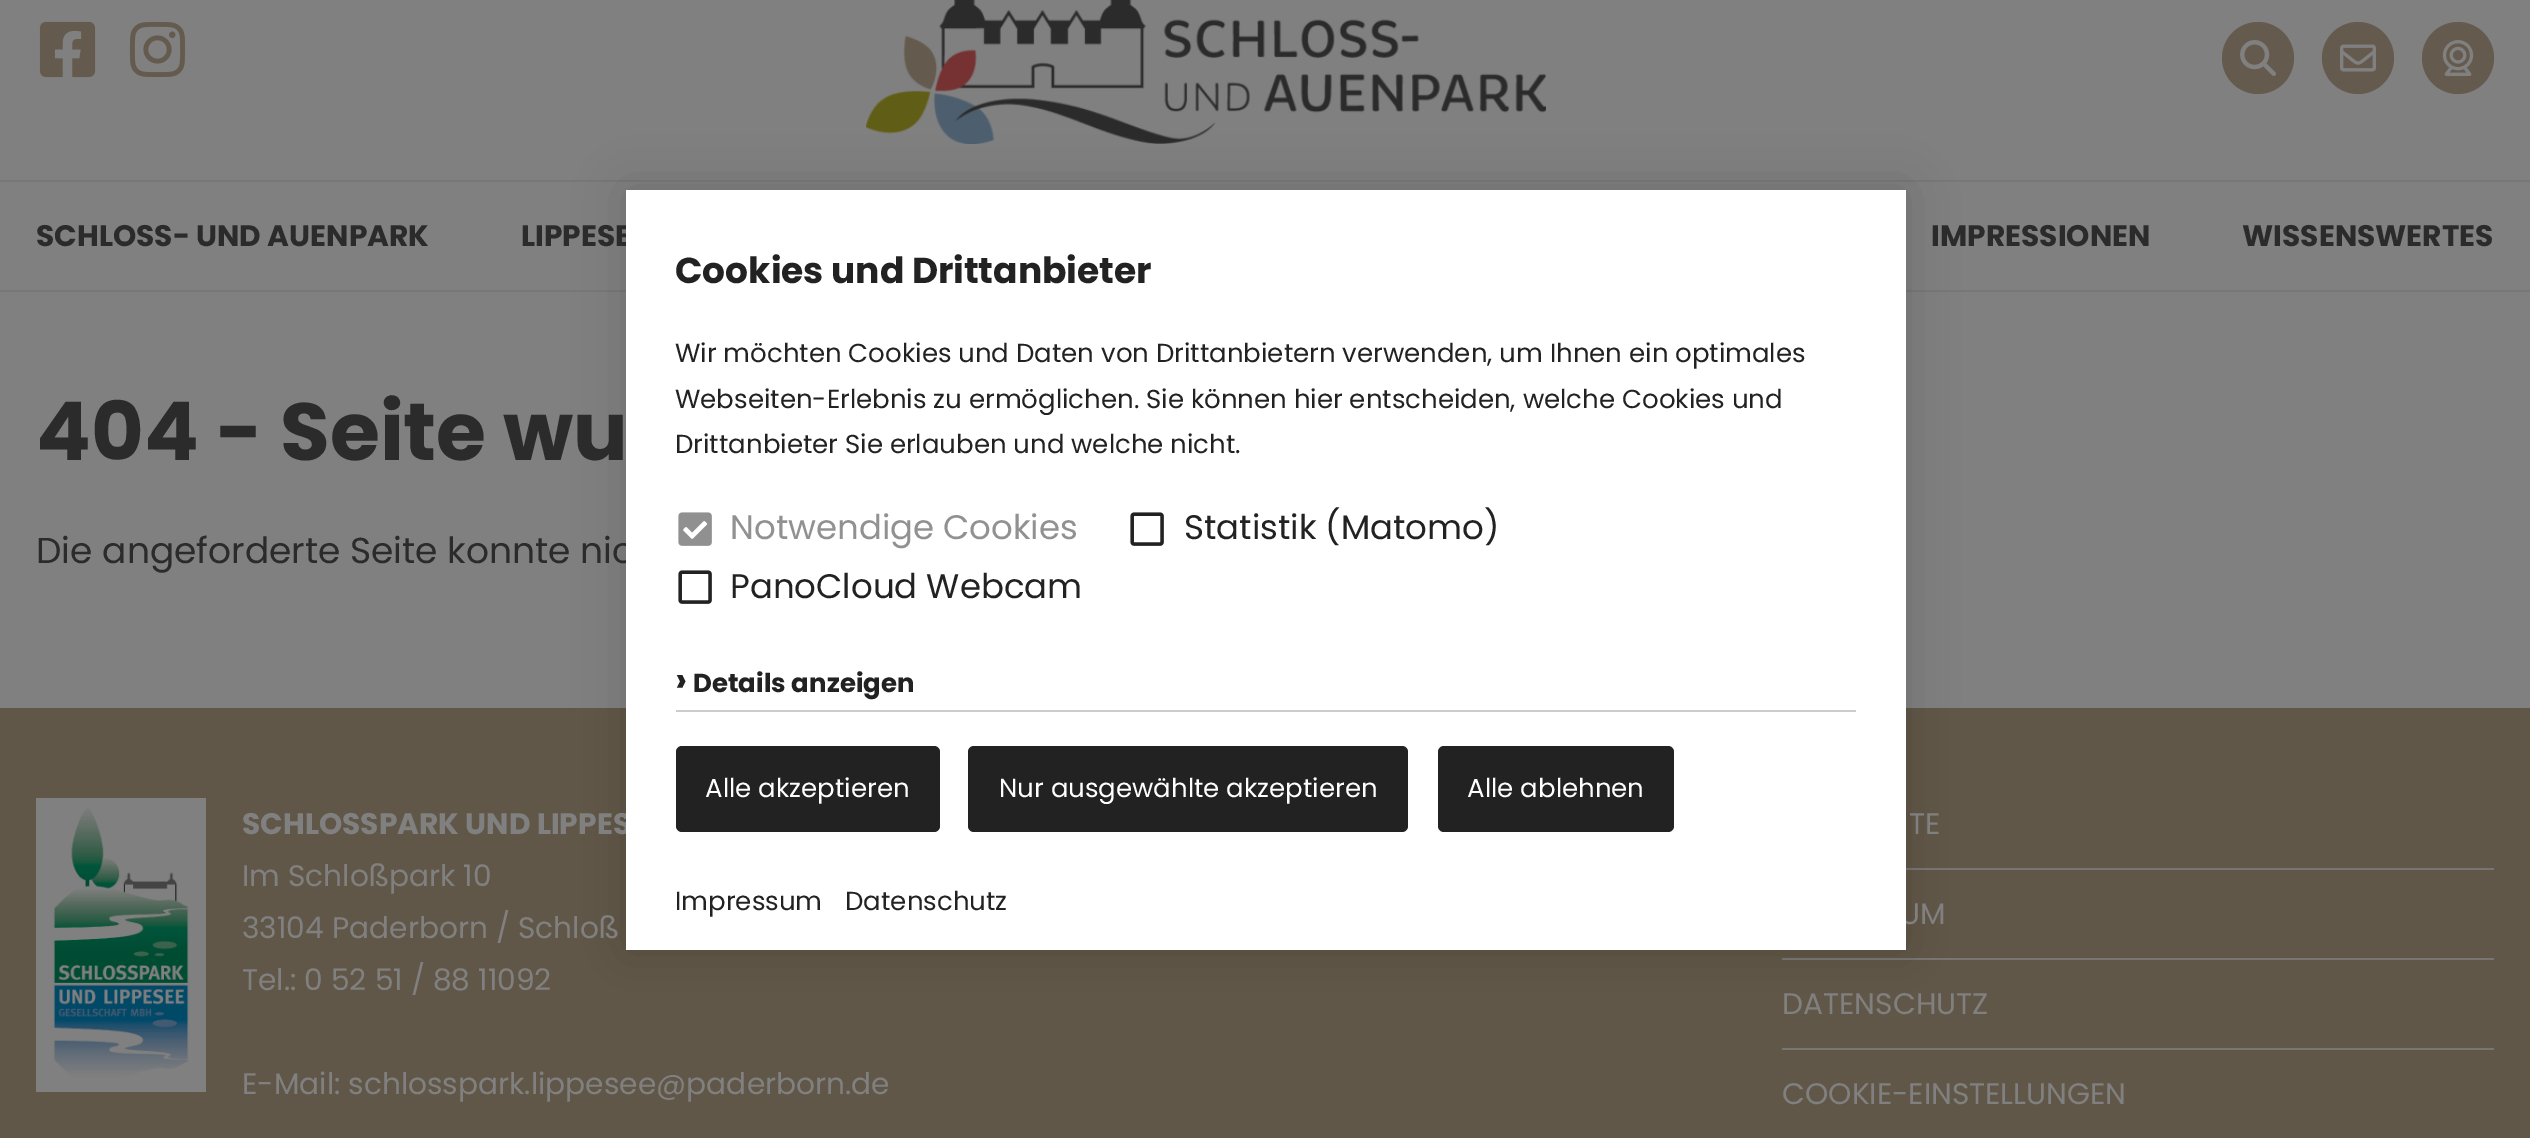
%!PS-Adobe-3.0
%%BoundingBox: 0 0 2530 1138
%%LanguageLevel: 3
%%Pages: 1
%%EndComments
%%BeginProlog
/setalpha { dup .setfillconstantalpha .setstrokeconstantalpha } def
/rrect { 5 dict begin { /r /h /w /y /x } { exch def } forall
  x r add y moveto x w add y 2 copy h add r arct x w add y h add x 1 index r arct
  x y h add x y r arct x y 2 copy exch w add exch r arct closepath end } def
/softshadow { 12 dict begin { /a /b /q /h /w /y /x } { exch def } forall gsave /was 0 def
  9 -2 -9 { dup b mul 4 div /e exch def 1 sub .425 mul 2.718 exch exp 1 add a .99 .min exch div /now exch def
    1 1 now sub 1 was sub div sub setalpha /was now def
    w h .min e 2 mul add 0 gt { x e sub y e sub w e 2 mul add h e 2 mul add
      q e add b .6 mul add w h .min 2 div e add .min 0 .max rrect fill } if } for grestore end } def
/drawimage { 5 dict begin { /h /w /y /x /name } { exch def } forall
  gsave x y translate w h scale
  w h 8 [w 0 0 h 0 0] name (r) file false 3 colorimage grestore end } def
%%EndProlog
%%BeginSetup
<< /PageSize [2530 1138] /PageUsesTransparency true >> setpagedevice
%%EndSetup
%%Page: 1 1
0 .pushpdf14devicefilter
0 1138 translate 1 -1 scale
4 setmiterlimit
0.502 setgray
0 0 2530 1138 rectfill
(images/1.raw) 39 21 57 57 drawimage
(images/2.raw) 129 21 57 57 drawimage
(images/3.raw) 866 0 680 144 drawimage
0.392 0.357 0.306 setrgbcolor
newpath 2258 58 36 0 360 arc closepath fill
(images/4.raw) 2240 40 36 36 drawimage
newpath 2358 58 36 0 360 arc closepath fill
(images/5.raw) 2340 44 36 28 drawimage
newpath 2458 58 36 0 360 arc closepath fill
(images/6.raw) 2442 40 32 36 drawimage
0.475 0.467 0.459 setrgbcolor
0 180 2530 2 rectfill
0 290 2530 2 rectfill
0.38 0.341 0.282 setrgbcolor
0 708 2530 430 rectfill
(images/7.raw) 36 798 170 294 drawimage
0.471 0.463 0.447 setrgbcolor
1906 868 588 2 rectfill
1782 958 712 2 rectfill
1782 1048 712 2 rectfill
0 setgray
626 190 1280 760 0 25 0.15 softshadow
/Poppins-Bold [29.7 0 0 -29.7 0 0] selectfont
0.173 0.169 0.169 setrgbcolor
36 246 moveto (SCHLOSS- UND AUENPARK) show
521 246 moveto (LIPPESE) show
1931 246 moveto (IMPRESSIONEN) show
2242 246 moveto (WISSENSWERTES) show
/Poppins-Bold [81 0 0 -81 0 0] selectfont
36 460 moveto (404 - Seite wu) show
/Poppins-Regular [36 0 0 -36 0 0] selectfont
36 563 moveto (Die angeforderte Seite konnte nic) show
/Poppins-Bold [29.7 0 0 -29.7 0 0] selectfont
0.502 setgray
242 834 moveto (SCHLOSSPARK UND LIPPES) show
/Poppins-Regular [29.7 0 0 -29.7 0 0] selectfont
242 886 moveto (Im Schloßpark 10) show
242 938 moveto (33104 Paderborn / Schloß) show
242 990 moveto (Tel.: 0 52 51 / 88 11092) show
242 1094 moveto (E-Mail: schlosspark.lippesee@paderborn.de) show
1909 834 moveto (TE) show
1900 924 moveto (UM) show
1782 1014 moveto (DATENSCHUTZ) show
1782 1104 moveto (COOKIE-EINSTELLUNGEN) show
1 setgray
626 190 1280 760 rectfill
/Poppins-Bold [36 0 0 -36 0 0] selectfont
0.133 setgray
675 283 moveto (Cookies und Drittanbieter) show
/Poppins-Regular [26 0 0 -26 0 0] selectfont
675 362 moveto (Wir möchten Cookies und Daten von Drittanbietern verwenden, um Ihnen ein optimales) show
675 408 moveto (Webseiten-Erlebnis zu ermöglichen. Sie können hier entscheiden, welche Cookies und) show
675 453 moveto (Drittanbieter Sie erlauben und welche nicht.) show
(images/8.raw) 678 512 34 34 drawimage
/Poppins-Regular [34 0 0 -34 0 0] selectfont
0.569 setgray
730 539 moveto (Notwendige Cookies) show
(images/9.raw) 1130 512 34 34 drawimage
0.133 setgray
1184 539 moveto (Statistik \(Matomo\)) show
(images/9.raw) 678 570 34 34 drawimage
730 598 moveto (PanoCloud Webcam) show
/Poppins-Bold [36 0 0 -36 0 0] selectfont
675 692 moveto (›) show
/Poppins-Bold [26 0 0 -26 0 0] selectfont
693 692 moveto (Details anzeigen) show
0.8 setgray
676 710 1180 2 rectfill
0.133 setgray
676 746 264 86 6 rrect fill
/Poppins-Regular [26 0 0 -26 0 0] selectfont
1 setgray
705 797 moveto (Alle akzeptieren) show
0.133 setgray
968 746 440 86 6 rrect fill
1 setgray
999 797 moveto (Nur ausgewählte akzeptieren) show
0.133 setgray
1438 746 236 86 6 rrect fill
1 setgray
1467 797 moveto (Alle ablehnen) show
0.133 setgray
675 910 moveto (Impressum) show
845 910 moveto (Datenschutz) show
.poppdf14devicefilter showpage
%%EOF
